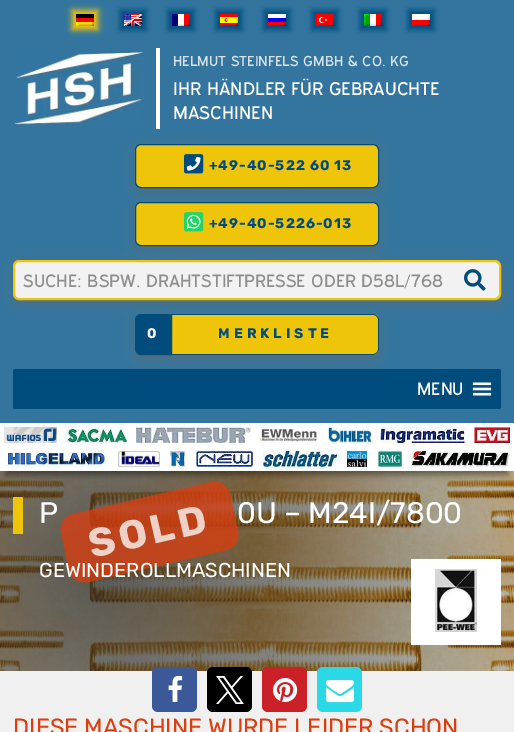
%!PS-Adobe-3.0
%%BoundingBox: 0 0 514 732
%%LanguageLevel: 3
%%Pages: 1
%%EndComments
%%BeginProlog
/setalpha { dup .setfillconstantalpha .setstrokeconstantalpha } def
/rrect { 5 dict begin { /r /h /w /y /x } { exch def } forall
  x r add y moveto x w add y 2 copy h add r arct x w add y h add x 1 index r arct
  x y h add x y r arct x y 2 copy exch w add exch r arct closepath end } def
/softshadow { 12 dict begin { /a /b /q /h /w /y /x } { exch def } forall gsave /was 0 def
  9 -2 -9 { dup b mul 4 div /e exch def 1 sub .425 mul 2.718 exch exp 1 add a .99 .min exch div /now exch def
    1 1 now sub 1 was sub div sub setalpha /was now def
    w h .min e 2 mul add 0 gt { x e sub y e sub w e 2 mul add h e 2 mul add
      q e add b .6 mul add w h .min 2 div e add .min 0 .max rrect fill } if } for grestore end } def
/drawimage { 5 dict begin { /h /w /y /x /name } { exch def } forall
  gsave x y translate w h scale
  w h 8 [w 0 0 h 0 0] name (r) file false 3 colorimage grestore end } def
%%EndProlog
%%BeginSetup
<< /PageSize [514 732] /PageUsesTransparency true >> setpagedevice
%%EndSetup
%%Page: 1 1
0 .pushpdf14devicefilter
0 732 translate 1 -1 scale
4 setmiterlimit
0.941 setgray
0 0 514 732 rectfill
(images/29.raw) 0 471 514 200 drawimage
0.937 0.773 0.035 setrgbcolor
13 497 10 37 rectfill
1 setgray
411 559 90 86 rectfill
(images/30.raw) 435 569 42 63 drawimage
0.231 0.349 0.596 setrgbcolor
152 667 45 45 6 rrect fill
(images/31.raw) 168 675 15 27 drawimage
0 setgray
207 667 45 45 6 rrect fill
(images/32.raw) 216 676 28 28 drawimage
0.796 0.125 0.153 setrgbcolor
262 667 45 45 6 rrect fill
(images/33.raw) 273 678 25 25 drawimage
0.165 0.851 0.898 setrgbcolor
317 667 45 45 6 rrect fill
(images/34.raw) 325 680 29 23 drawimage
/Rubik-Regular [29.75 0 0 -29.75 0 0] selectfont
1 setgray
39 523 moveto (P) show
237 523 moveto (0U – M24I/7800) show
0.75 setalpha
0.867 0.235 0.051 setrgbcolor
newpath 73 514 moveto 211 482 lineto 219 480 228 485 230 494 curveto 238 531 lineto 240 540 235 548 226 550 curveto 89 582 lineto 80 584 71 579 69 570 curveto 61 533 lineto 59 524 64 516 73 514 curveto closepath fill
1 setalpha
0 setgray
6 16 502 459 0 3 0.4 softshadow
0.2 0.459 0.624 setrgbcolor
0 0 514 423 rectfill
0.412 setgray
17 268 480 32 2 8 1 softshadow
0.949 setgray
14 261 486 38 5 rrect gsave fill grestore
0.937 0.773 0.035 setrgbcolor
2 setlinewidth
stroke
0.412 setgray
139 322 236 33 2 8 1 softshadow
0 0.298 0.49 setrgbcolor
13 369 488 40 2 rrect fill
(images/13.raw) 472 382 20 14 drawimage
/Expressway-Regular [18 0 0 -18 0 0] selectfont
1 setgray
417 395 moveto (MENU) show
(images/12.raw) 464 269 22 22 drawimage
156 48 4 81 rectfill
0.412 setgray
139 152 236 36 2 8 1 softshadow
0.937 0.773 0.035 setrgbcolor
135.5 144.5 243 43 5.5 rrect gsave fill grestore
0 0.298 0.49 setrgbcolor
1 setlinewidth
stroke
0.412 setgray
139 210 236 36 2 8 1 softshadow
0.937 0.773 0.035 setrgbcolor
135.5 202.5 243 43 5.5 rrect gsave fill grestore
0 0.298 0.49 setrgbcolor
stroke
1 setgray
184 215 17 15 rectfill
(images/11.raw) 184 212 20 20 drawimage
/Rubik-Bold [14 0 0 -14 0 0] selectfont
0 0.298 0.49 setrgbcolor
209 228 moveto 1 0 (+49-40-5226-013) ashow
1 setgray
184 157 17 15 rectfill
(images/10.raw) 184 154 20 20 drawimage
0 0.298 0.49 setrgbcolor
209 170 moveto 1 0 (+49-40-522 60 13) ashow
/Expressway-Regular [18.6 0 0 -18.6 0 0] selectfont
1 setgray
173 119 moveto (MASCHINEN) show
173 95 moveto (IHR HÄNDLER FÜR GEBRAUCHTE) show
/Expressway-Regular [14.6 0 0 -14.6 0 0] selectfont
0.839 0.89 0.925 setrgbcolor
173 66 moveto (HELMUT STEINFELS GMBH & CO. KG) show
(images/9.raw) 13 52 131 73 drawimage
0.937 0.773 0.035 setrgbcolor
newpath 172 314 moveto 373 314 lineto 376.5 314 379 316.5 379 320 curveto 379 349 lineto 379 352.5 376.5 355 373 355 curveto 172 355 lineto closepath fill
0 0.298 0.49 setrgbcolor
newpath 172 314 moveto 373 314 lineto 376 314 379 317 379 320 curveto 379 349 lineto 379 352 376 355 373 355 curveto 172 355 lineto closepath 172 315 moveto 373 315 lineto 376 315 378 317 378 320 curveto 378 349 lineto 378 352 376 354 373 354 curveto 172 354 lineto closepath eofill
/Rubik-Bold [14 0 0 -14 0 0] selectfont
218 338 moveto 4 0 (MERKLISTE) ashow
newpath 141 314.5 moveto 171.5 314.5 lineto 171.5 354.5 lineto 141 354.5 lineto 138 354.5 135.5 352 135.5 349 curveto 135.5 320 lineto 135.5 317 138 314.5 141 314.5 curveto closepath gsave fill grestore
stroke
1 setgray
147 338 moveto 4 0 (0) ashow
/Expressway-Regular [18 0 0 -18 0 0] selectfont
0.557 setgray
23 287 moveto (SUCHE: BSPW. DRAHTSTIFTPRESSE ODER D58L/768) show
0 0.298 0.49 setrgbcolor
408 10 26 20 0 3 1 softshadow
(images/8.raw) 412 14 18 12 drawimage
360 10 26 20 0 3 1 softshadow
(images/7.raw) 364 14 18 12 drawimage
312 10 26 20 0 3 1 softshadow
(images/6.raw) 316 14 18 12 drawimage
264 10 26 20 0 3 1 softshadow
(images/5.raw) 268 14 18 12 drawimage
216 10 26 20 0 3 1 softshadow
(images/4.raw) 220 14 18 12 drawimage
168 10 26 20 0 3 1 softshadow
(images/3.raw) 172 14 18 12 drawimage
120 10 26 20 0 3 1 softshadow
(images/2.raw) 124 14 18 12 drawimage
0.937 0.773 0.035 setrgbcolor
72 10 26 20 0 3 1 softshadow
(images/1.raw) 76 14 18 12 drawimage
1 setgray
0 423 514 48 rectfill
(images/28.raw) 412 451 98 16 drawimage
(images/27.raw) 378 451 24 16 drawimage
(images/26.raw) 347 451 20 16 drawimage
(images/25.raw) 263 451 74 16 drawimage
(images/24.raw) 196 451 57 16 drawimage
(images/23.raw) 170 451 15 16 drawimage
(images/22.raw) 118 451 42 16 drawimage
(images/21.raw) 4 451 104 16 drawimage
(images/20.raw) 474 427 36 16 drawimage
(images/19.raw) 380 427 86 16 drawimage
(images/18.raw) 328 427 44 16 drawimage
(images/17.raw) 260 428 57 15 drawimage
(images/16.raw) 136 427 115 16 drawimage
(images/15.raw) 65 427 63 16 drawimage
(images/14.raw) 4 427 53 16 drawimage
/Rubik-Bold [40 0 0 -40 0 0] selectfont
0.937 0.82 0.78 setrgbcolor
gsave 92 558 translate -13 rotate 0 0 moveto 4 0 (SOLD) ashow grestore
/Rubik-Regular [20.1 0 0 -20.1 0 0] selectfont
1 setgray
39 577 moveto (GEWINDEROLLMASCHINEN) show
/Rubik-Regular [23.4 0 0 -23.4 0 0] selectfont
0.867 0.235 0.051 setrgbcolor
13 735 moveto (DIESE MASCHINE WURDE LEIDER SCHON) show
.poppdf14devicefilter showpage
%%EOF
